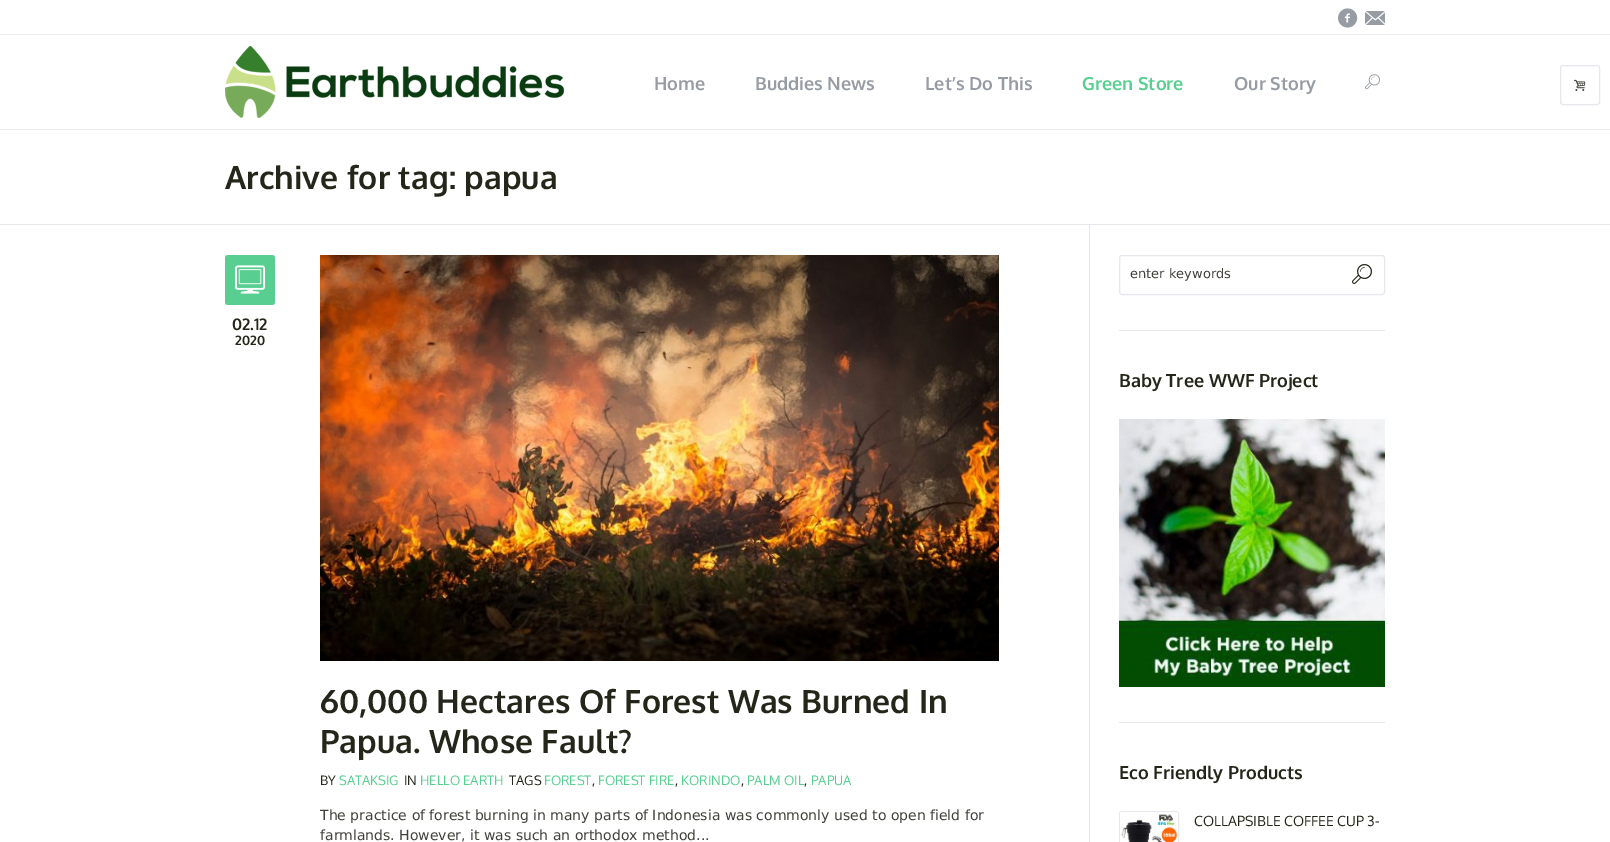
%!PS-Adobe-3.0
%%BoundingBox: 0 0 1610 842
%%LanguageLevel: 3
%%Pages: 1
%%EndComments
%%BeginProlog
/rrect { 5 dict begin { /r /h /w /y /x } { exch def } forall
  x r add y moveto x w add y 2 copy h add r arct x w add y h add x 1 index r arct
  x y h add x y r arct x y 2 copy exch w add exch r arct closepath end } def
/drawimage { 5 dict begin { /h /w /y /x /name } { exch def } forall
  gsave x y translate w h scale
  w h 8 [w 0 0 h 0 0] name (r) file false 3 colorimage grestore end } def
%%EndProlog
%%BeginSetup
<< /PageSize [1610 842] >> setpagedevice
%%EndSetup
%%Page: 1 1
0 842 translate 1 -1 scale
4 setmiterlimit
1 setgray
0 0 1610 842 rectfill
0.918 0.929 0.941 setrgbcolor
0 34 1610 1 rectfill
(images/1.raw) 1338 8 20 20 drawimage
(images/2.raw) 1365 11 20 14 drawimage
0.922 setgray
0 129 1610 1 rectfill
(images/3.raw) 225 46 339 72 drawimage
(images/4.raw) 1365 74 15 16 drawimage
0.898 0.91 0.925 setrgbcolor
0 224 1610 1 rectfill
0.345 0.812 0.565 setrgbcolor
225 255 50 50 3 rrect fill
(images/5.raw) 235 265 31 29 drawimage
(images/6.raw) 320 255 679 406 drawimage
0.898 0.91 0.925 setrgbcolor
1089 225 1 617 rectfill
1119 330 266 1 rectfill
1119.5 255.5 265 39 2.5 rrect stroke
(images/7.raw) 1352 264 20 20 drawimage
1119 722 266 1 rectfill
(images/8.raw) 1119 419 266 268 drawimage
1119.5 811.5 59 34 2.5 rrect stroke
(images/9.raw) 1120 812 58 30 drawimage
1560.5 65.5 39 39 2.5 rrect stroke
(images/10.raw) 1574 79 12 12 drawimage
/Oxygen-Bold [18 0 0 -18 0 0] selectfont
0.592 0.612 0.643 setrgbcolor
654 90 moveto (Home) show
755 90 moveto (Buddies News) show
925 90 moveto (Let’s Do This) show
0.345 0.812 0.565 setrgbcolor
1082 90 moveto (Green Store) show
0.592 0.612 0.643 setrgbcolor
1234 90 moveto (Our Story) show
/Oxygen-Bold [32 0 0 -32 0 0] selectfont
0.141 0.149 0.098 setrgbcolor
225 189 moveto (Archive for tag: papua) show
/Oxygen-Bold [16 0 0 -16 0 0] selectfont
232 330 moveto (02.12) show
/Oxygen-Bold [13 0 0 -13 0 0] selectfont
235 345 moveto (2020) show
/Oxygen-Bold [32 0 0 -32 0 0] selectfont
320 713 moveto (60,000 Hectares Of Forest Was Burned In) show
320 753 moveto (Papua. Whose Fault?) show
/Oxygen-Regular [13 0 0 -13 0 0] selectfont
320 785 moveto (BY) show
0.345 0.812 0.565 setrgbcolor
339 785 moveto (SATAKSIG) show
0.141 0.149 0.098 setrgbcolor
404 785 moveto (IN) show
0.345 0.812 0.565 setrgbcolor
420 785 moveto (HELLO EARTH) show
0.141 0.149 0.098 setrgbcolor
509 785 moveto (TAGS) show
0.345 0.812 0.565 setrgbcolor
544 785 moveto (FOREST) show
0.141 0.149 0.098 setrgbcolor
592 785 moveto (,) show
0.345 0.812 0.565 setrgbcolor
598 785 moveto (FOREST FIRE) show
0.141 0.149 0.098 setrgbcolor
675 785 moveto (,) show
0.345 0.812 0.565 setrgbcolor
681 785 moveto (KORINDO) show
0.141 0.149 0.098 setrgbcolor
741 785 moveto (,) show
0.345 0.812 0.565 setrgbcolor
747 785 moveto (PALM OIL) show
0.141 0.149 0.098 setrgbcolor
804 785 moveto (,) show
0.345 0.812 0.565 setrgbcolor
811 785 moveto (PAPUA) show
/DejaVuSans-Regular [14 0 0 -14 0 0] selectfont
0.259 0.255 0.235 setrgbcolor
320 820 moveto (The practice of forest burning in many parts of Indonesia was commonly used to open field for) show
320 840 moveto (farmlands. However, it was such an orthodox method...) show
/DejaVuSans-Regular [13 0 0 -13 0 0] selectfont
1130 278 moveto (enter keywords) show
/Oxygen-Bold [18 0 0 -18 0 0] selectfont
0.141 0.149 0.098 setrgbcolor
1119 387 moveto (Baby Tree WWF Project) show
1119 779 moveto (Eco Friendly Products) show
/Oxygen-Regular [14 0 0 -14 0 0] selectfont
1194 826 moveto (COLLAPSIBLE COFFEE CUP 3-) show
showpage
%%EOF
